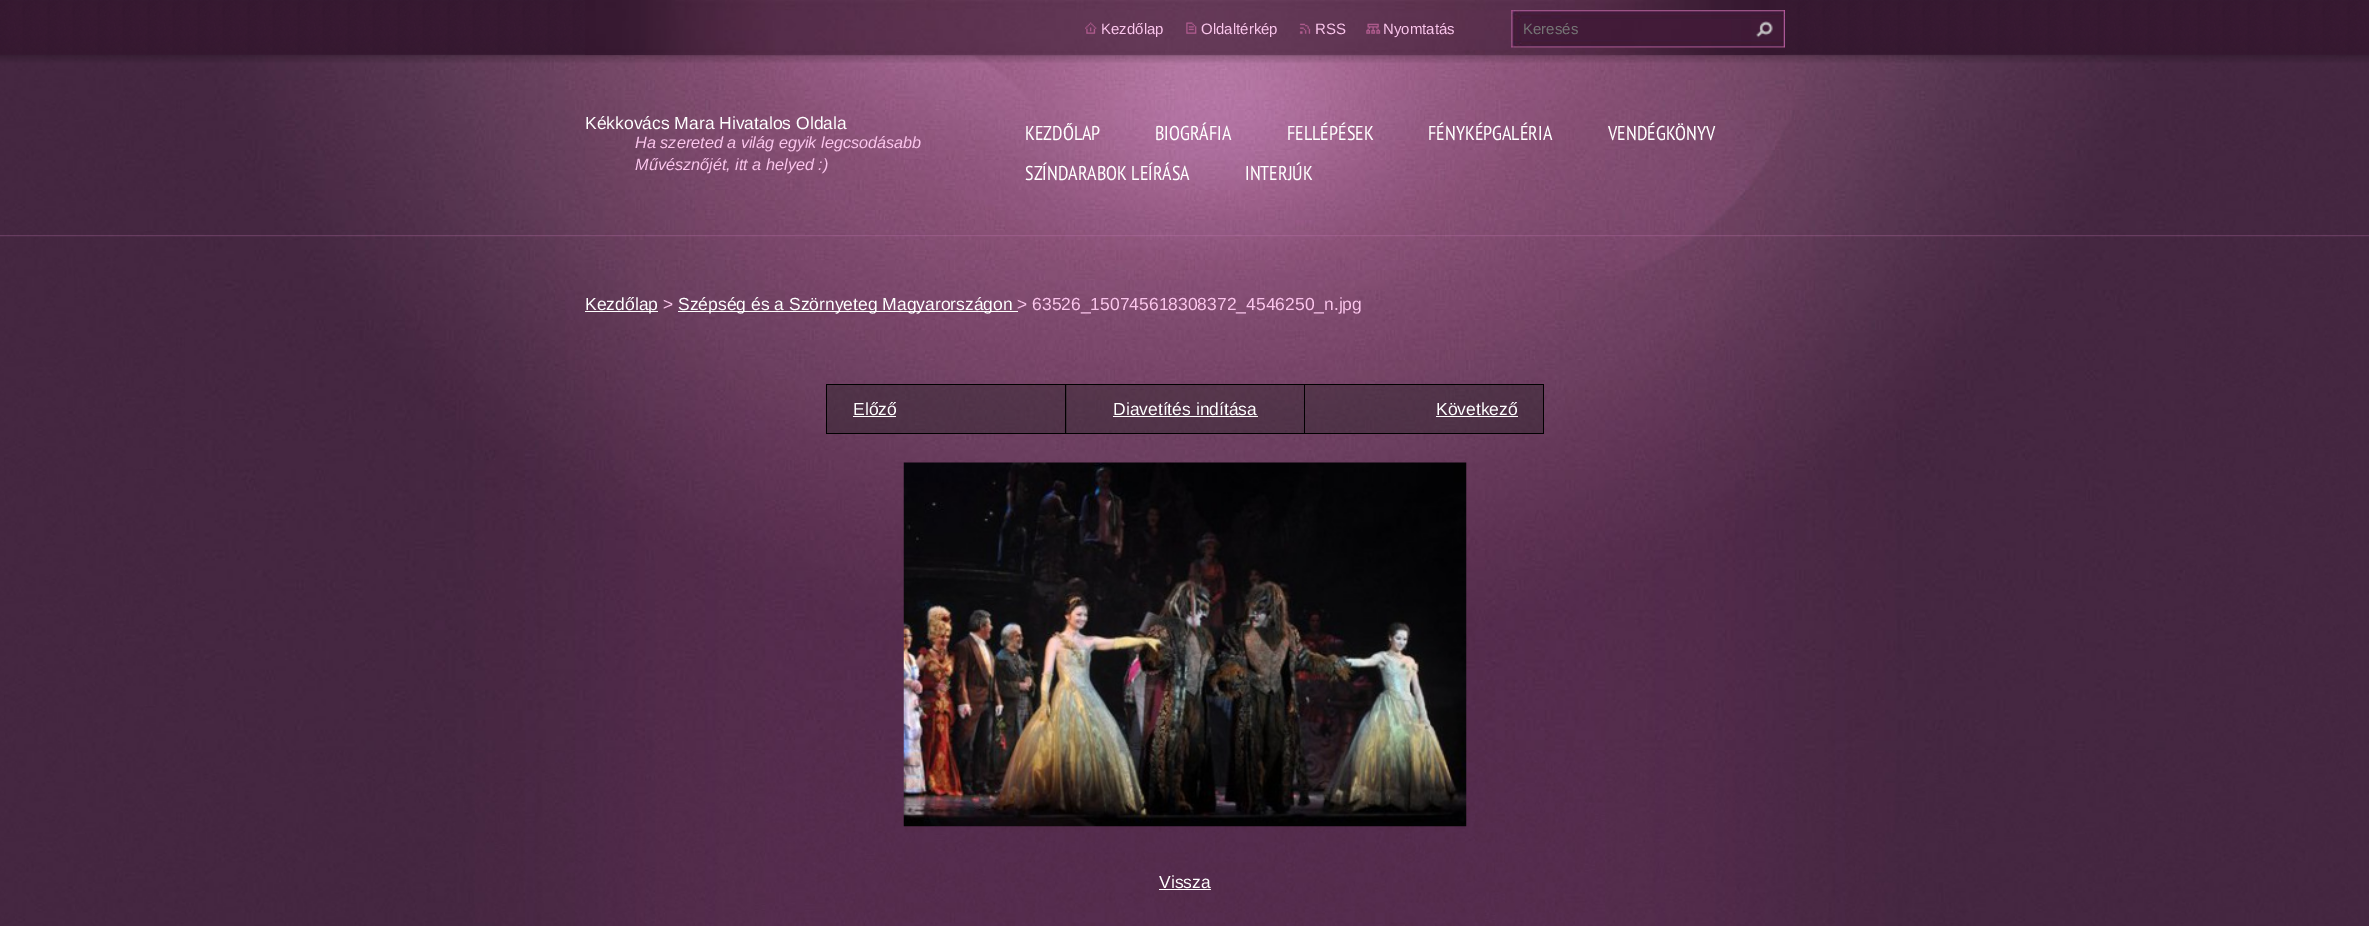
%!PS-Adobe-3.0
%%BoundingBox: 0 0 2369 926
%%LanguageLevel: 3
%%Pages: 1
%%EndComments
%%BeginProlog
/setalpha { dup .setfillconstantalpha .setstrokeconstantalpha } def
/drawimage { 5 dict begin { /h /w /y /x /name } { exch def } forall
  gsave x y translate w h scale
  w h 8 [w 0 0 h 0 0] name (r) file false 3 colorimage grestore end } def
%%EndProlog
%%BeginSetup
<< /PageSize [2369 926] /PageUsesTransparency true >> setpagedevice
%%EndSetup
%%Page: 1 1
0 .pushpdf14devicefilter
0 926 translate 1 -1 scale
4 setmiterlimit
1 setgray
0 0 2369 926 rectfill
(images/1.raw) 0 54 2369 872 drawimage
(images/2.raw) 4 54 2343 872 drawimage
(images/3.raw) 185 54 2000 696 drawimage
(images/4.raw) 0 235 2369 2 drawimage
(images/5.raw) 0 0 2369 63 drawimage
(images/6.raw) 585 0 1200 55 drawimage
(images/7.raw) 1085 22 12 12 drawimage
(images/8.raw) 1186 22 11 12 drawimage
(images/9.raw) 1299 23 12 11 drawimage
(images/10.raw) 1366 23 15 11 drawimage
(images/11.raw) 1511 10 274 38 drawimage
(images/12.raw) 1756 21 17 17 drawimage
585 311 73 1 rectfill
678 311 340 1 rectfill
0 setgray
826 384 718 1 rectfill
826 384 1 50 rectfill
0.36 setalpha
0.11 setgray
827 385 240 48 rectfill
1 setalpha
0 setgray
1543 384 1 50 rectfill
1304 433 240 1 rectfill
1304 384 1 50 rectfill
1065 433 240 1 rectfill
1065 384 1 50 rectfill
826 433 240 1 rectfill
1 setgray
853 416 43 1 rectfill
0.36 setalpha
0.11 setgray
1066 385 238 48 rectfill
1 setalpha
1 setgray
1113 416 145 1 rectfill
0.36 setalpha
0.11 setgray
1305 385 238 48 rectfill
1 setalpha
1 setgray
1436 416 82 1 rectfill
(images/13.raw) 903 462 564 365 drawimage
1159 889 52 1 rectfill
/LiberationSans-Regular [15 0 0 -15 0 0] selectfont
0.984 0.773 0.925 setrgbcolor
1101 34 moveto (Kezdőlap) show
1201 34 moveto (Oldaltérkép) show
1315 34 moveto (RSS) show
1383 34 moveto (Nyomtatás) show
0.459 setgray
1523 34 moveto (Keresés) show
/LiberationSans-Regular [17.5 0 0 -17.5 0 0] selectfont
1 setgray
585 129 moveto (Kékkovács Mara Hivatalos Oldala) show
/LiberationSans-Italic [16.25 0 0 -16.25 0 0] selectfont
0.984 0.773 0.925 setrgbcolor
635 148 moveto (Ha szereted a világ egyik legcsodásabb) show
635 170 moveto (Művésznőjét, itt a helyed :\)) show
/PTSansNarrow-Regular [20 0 0 -20 0 0] selectfont
1 setgray
1025 140 moveto (KEZDŐLAP) show
1155 140 moveto (BIOGRÁFIA) show
1287 140 moveto (FELLÉPÉSEK) show
1428 140 moveto (FÉNYKÉPGALÉRIA) show
1608 140 moveto (VENDÉGKÖNYV) show
1025 180 moveto (SZÍNDARABOK LEÍRÁSA) show
1245 180 moveto (INTERJÚK) show
/LiberationSans-Regular [17.5 0 0 -17.5 0 0] selectfont
585 310 moveto (Kezdőlap) show
0.984 0.773 0.925 setrgbcolor
663 310 moveto (>) show
1 setgray
678 310 moveto (Szépség és a Szörnyeteg Magyarországon) show
0.984 0.773 0.925 setrgbcolor
1017 310 moveto (> 63526_150745618308372_4546250_n.jpg) show
1 setgray
853 415 moveto (Előző) show
1113 415 moveto (Diavetítés indítása) show
1436 415 moveto (Következő) show
1159 888 moveto (Vissza) show
.poppdf14devicefilter showpage
%%EOF
